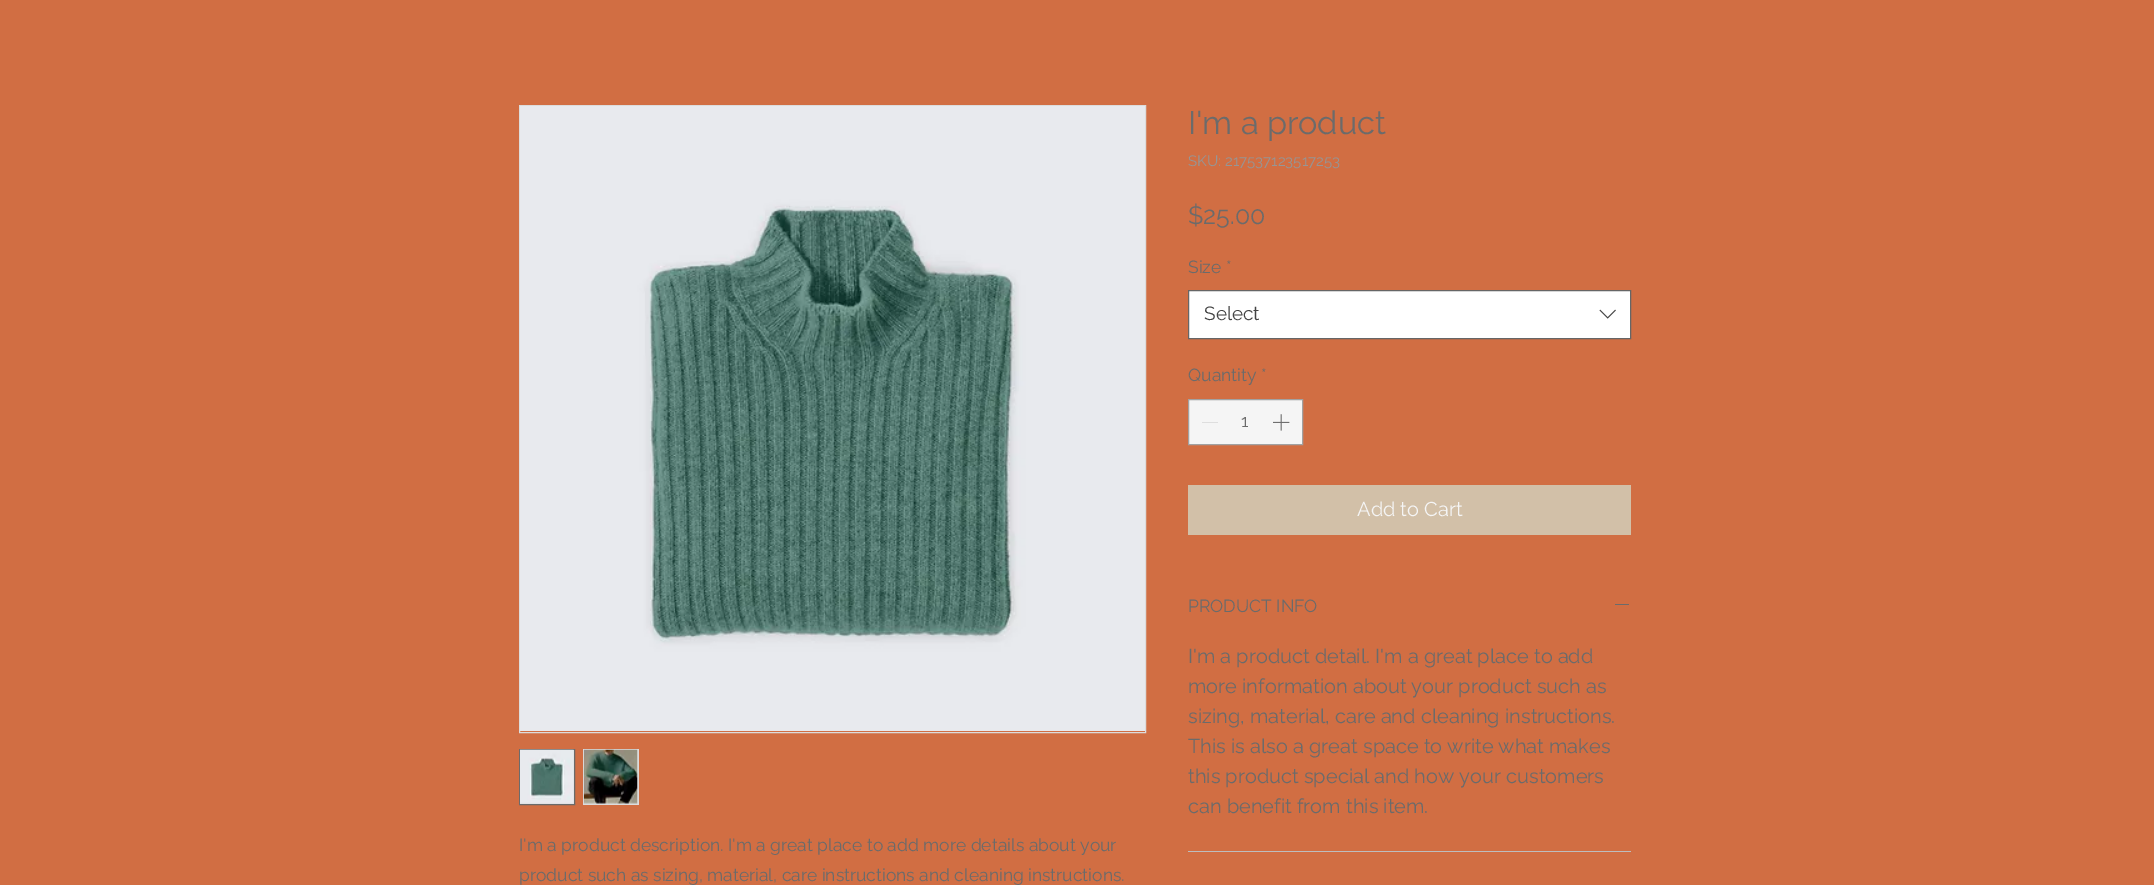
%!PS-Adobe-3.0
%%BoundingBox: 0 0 2154 885
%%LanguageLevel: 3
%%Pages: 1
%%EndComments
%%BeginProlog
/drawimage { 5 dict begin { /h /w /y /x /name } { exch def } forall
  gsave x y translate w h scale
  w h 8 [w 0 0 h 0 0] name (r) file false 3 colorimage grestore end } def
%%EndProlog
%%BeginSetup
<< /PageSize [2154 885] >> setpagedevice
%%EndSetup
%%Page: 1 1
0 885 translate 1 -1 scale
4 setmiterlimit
0.82 0.431 0.263 setrgbcolor
0 0 2154 885 rectfill
1 setgray
newpath 1188.5 290.5 moveto 1630.5 290.5 lineto 1630.5 338.5 lineto 1188.5 338.5 lineto closepath gsave fill grestore
0.4 setgray
stroke
(images/1.raw) 1599 309 17 10 drawimage
0.961 setgray
newpath 1188.5 399.5 moveto 1302.5 399.5 lineto 1302.5 444.5 lineto 1188.5 444.5 lineto closepath gsave fill grestore
0.635 setgray
stroke
0.871 setgray
1202 422 16 1 rectfill
(images/2.raw) 1273 414 17 17 drawimage
0.824 0.753 0.659 setrgbcolor
1188 485 443 50 rectfill
0.741 setgray
1188 851 443 1 rectfill
0.42 setgray
1615 604 14 1 rectfill
0.863 setgray
519.5 105.5 626 627 rectstroke
(images/3.raw) 520 106 625 625 drawimage
newpath 519.5 749.5 moveto 574.5 749.5 lineto 574.5 804.5 lineto 519.5 804.5 lineto closepath gsave fill grestore
0.42 setgray
stroke
(images/4.raw) 520 749 54 55 drawimage
0.863 setgray
583 749 56 56 rectfill
(images/5.raw) 583 749 55 55 drawimage
/Raleway-Regular [32.5 0 0 -32.5 0 0] selectfont
0.42 setgray
1188 134 moveto (I'm a product) show
/Raleway-Regular [15 0 0 -15 0 0] selectfont
0.588 setgray
1188 166 moveto (SKU: 217537123517253) show
/Raleway-Regular [25 0 0 -25 0 0] selectfont
0.42 setgray
1188 224 moveto ($25.00) show
/Raleway-Regular [17.5 0 0 -17.5 0 0] selectfont
1188 273 moveto (Size) show
1226 273 moveto (*) show
/Raleway-Regular [19 0 0 -19 0 0] selectfont
0.267 setgray
1204 320 moveto (Select) show
/Raleway-Regular [17.5 0 0 -17.5 0 0] selectfont
0.42 setgray
1188 381 moveto (Quantity) show
1261 381 moveto (*) show
1241 427 moveto (1) show
/Raleway-Regular [20 0 0 -20 0 0] selectfont
0.961 setgray
1357 516 moveto (Add to Cart) show
/Raleway-Regular [17.5 0 0 -17.5 0 0] selectfont
0.42 setgray
1188 612 moveto (PRODUCT INFO) show
/Raleway-Regular [20 0 0 -20 0 0] selectfont
1188 663 moveto (I'm a product detail. I'm a great place to add) show
1188 693 moveto (more information about your product such as) show
1188 723 moveto (sizing, material, care and cleaning instructions.) show
1188 753 moveto (This is also a great space to write what makes) show
1188 783 moveto (this product special and how your customers) show
1188 813 moveto (can benefit from this item.) show
/Raleway-Regular [17.5 0 0 -17.5 0 0] selectfont
519 851 moveto (I'm a product description. I'm a great place to add more details about your) show
519 881 moveto (product such as sizing, material, care instructions and cleaning instructions.) show
showpage
%%EOF
